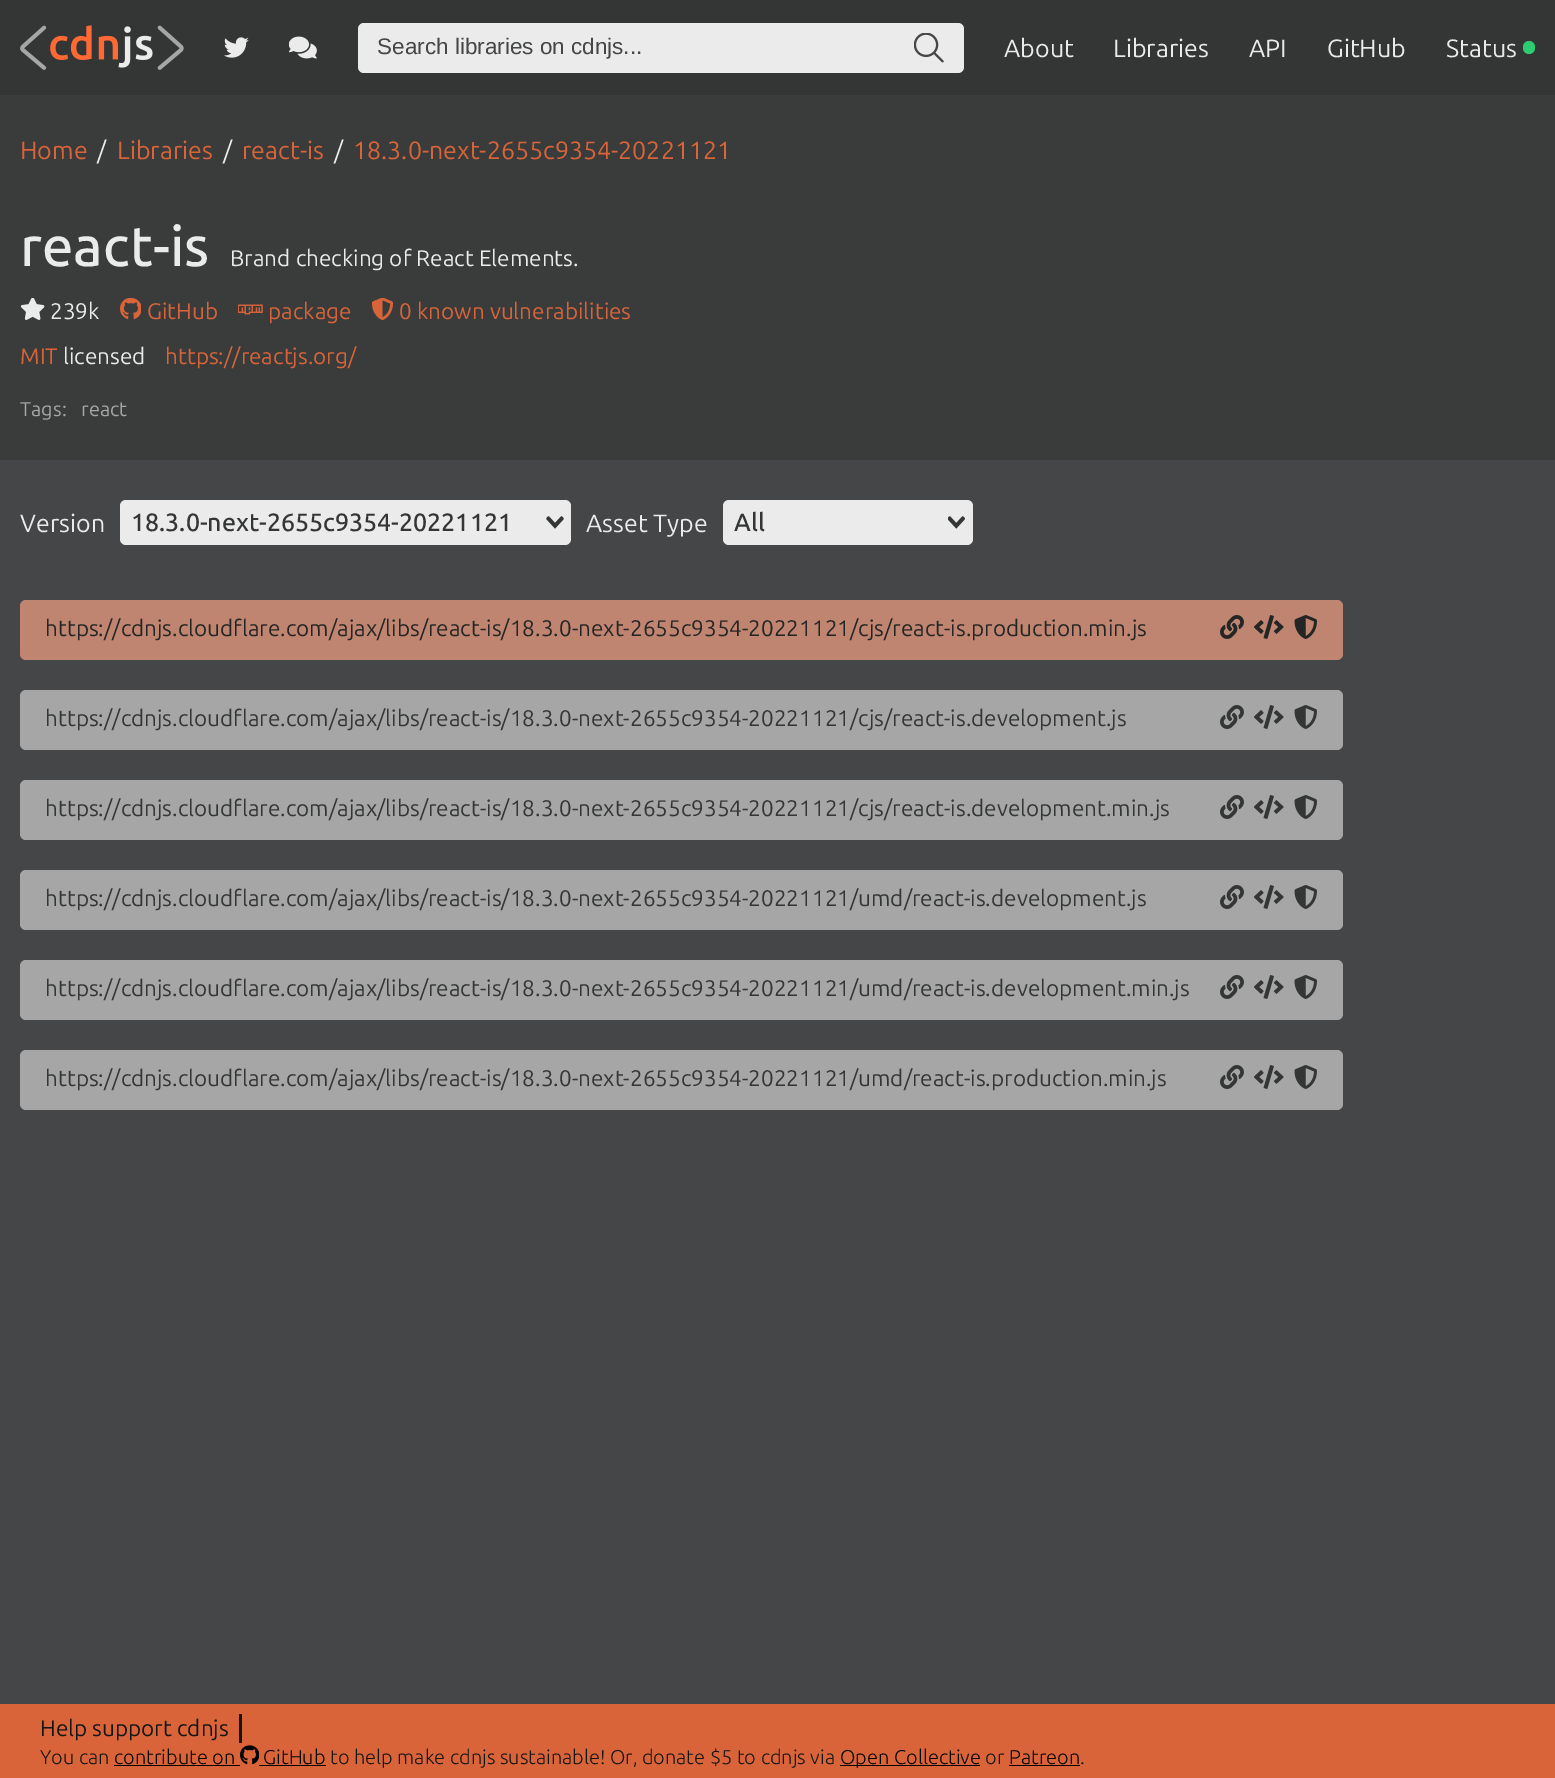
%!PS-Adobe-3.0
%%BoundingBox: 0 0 1555 1778
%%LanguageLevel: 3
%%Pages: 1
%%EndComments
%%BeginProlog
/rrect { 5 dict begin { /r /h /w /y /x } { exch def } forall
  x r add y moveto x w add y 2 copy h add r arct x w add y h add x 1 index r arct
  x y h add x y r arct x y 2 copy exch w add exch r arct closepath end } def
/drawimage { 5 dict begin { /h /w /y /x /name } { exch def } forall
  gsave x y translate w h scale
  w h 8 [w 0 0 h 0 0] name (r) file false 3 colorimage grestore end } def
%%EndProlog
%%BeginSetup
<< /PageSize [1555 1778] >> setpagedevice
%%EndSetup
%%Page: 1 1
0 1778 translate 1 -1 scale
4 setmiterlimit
0.271 0.275 0.278 setrgbcolor
0 0 1555 1778 rectfill
0.204 0.208 0.208 setrgbcolor
0 0 1555 95 rectfill
(images/1.raw) 20 25 164 45 drawimage
(images/2.raw) 224 37 25 21 drawimage
(images/3.raw) 289 36 28 23 drawimage
0.922 setgray
358 23 606 50 6 rrect fill
(images/4.raw) 914 33 30 30 drawimage
0.18 0.8 0.443 setrgbcolor
1523 41 12 13 6 rrect fill
0.227 0.235 0.235 setrgbcolor
0 95 1555 365 rectfill
(images/5.raw) 20 298 25 22 drawimage
(images/6.raw) 120 298 21 22 drawimage
(images/7.raw) 238 304 25 11 drawimage
(images/8.raw) 372 298 21 22 drawimage
0.922 setgray
120 500 451 45 6 rrect fill
(images/9.raw) 546 516 18 13 drawimage
723 500 250 45 6 rrect fill
(images/10.raw) 948 516 17 13 drawimage
0.753 0.522 0.439 setrgbcolor
20 600 1323 60 6 rrect fill
(images/11.raw) 1220 615 24 24 drawimage
(images/12.raw) 1254 615 30 24 drawimage
(images/13.raw) 1294 615 23 24 drawimage
0.651 setgray
20 690 1323 60 6 rrect fill
(images/14.raw) 1220 705 24 24 drawimage
(images/15.raw) 1254 705 30 24 drawimage
(images/16.raw) 1294 705 23 24 drawimage
20 780 1323 60 6 rrect fill
(images/14.raw) 1220 795 24 24 drawimage
(images/15.raw) 1254 795 30 24 drawimage
(images/16.raw) 1294 795 23 24 drawimage
20 870 1323 60 6 rrect fill
(images/14.raw) 1220 885 24 24 drawimage
(images/15.raw) 1254 885 30 24 drawimage
(images/16.raw) 1294 885 23 24 drawimage
20 960 1323 60 6 rrect fill
(images/14.raw) 1220 975 24 24 drawimage
(images/15.raw) 1254 975 30 24 drawimage
(images/16.raw) 1294 975 23 24 drawimage
20 1050 1323 60 6 rrect fill
(images/14.raw) 1220 1065 24 24 drawimage
(images/15.raw) 1254 1065 30 24 drawimage
(images/16.raw) 1294 1065 23 24 drawimage
0.851 0.392 0.227 setrgbcolor
0 1704 1555 74 rectfill
0.078 0.082 0.082 setrgbcolor
239 1714 3 29 rectfill
0.012 setgray
114 1765 126 1 rectfill
(images/17.raw) 240 1745 19 20 drawimage
259 1765 67 1 rectfill
840 1765 140 1 rectfill
1009 1765 71 1 rectfill
/LiberationSans-Regular [22.5 0 0 -22.5 0 0] selectfont
0.271 0.275 0.278 setrgbcolor
377 54 moveto (Search libraries on cdnjs...) show
/Ubuntu-Regular [25 0 0 -25 0 0] selectfont
0.922 setgray
1004 57 moveto (About) show
1113 57 moveto (Libraries) show
1249 57 moveto (API) show
1327 57 moveto (GitHub) show
1446 57 moveto (Status) show
0.851 0.392 0.227 setrgbcolor
20 159 moveto (Home) show
0.922 setgray
97 159 moveto (/) show
0.851 0.392 0.227 setrgbcolor
117 159 moveto (Libraries) show
0.922 setgray
223 159 moveto (/) show
0.851 0.392 0.227 setrgbcolor
242 159 moveto (react-is) show
0.922 setgray
334 159 moveto (/) show
0.851 0.392 0.227 setrgbcolor
353 159 moveto (18.3.0-next-2655c9354-20221121) show
/Ubuntu-Medium [56 0 0 -56 0 0] selectfont
0.922 setgray
20 266 moveto (react-is) show
/Ubuntu-Regular [22.5 0 0 -22.5 0 0] selectfont
230 266 moveto (Brand checking of React Elements.) show
50 319 moveto (239k) show
0.851 0.392 0.227 setrgbcolor
147 319 moveto (GitHub) show
268 319 moveto (package) show
399 319 moveto (0 known vulnerabilities) show
20 364 moveto (MIT) show
0.922 setgray
63 364 moveto (licensed) show
0.851 0.392 0.227 setrgbcolor
165 364 moveto (https://reactjs.org/) show
/Ubuntu-Regular [20 0 0 -20 0 0] selectfont
0.651 setgray
20 416 moveto (Tags:) show
81 416 moveto (react) show
/Ubuntu-Regular [25 0 0 -25 0 0] selectfont
0.922 setgray
20 532 moveto (Version) show
/Ubuntu-Medium [25 0 0 -25 0 0] selectfont
0.204 0.208 0.208 setrgbcolor
131 531 moveto (18.3.0-next-2655c9354-20221121) show
/Ubuntu-Regular [25 0 0 -25 0 0] selectfont
0.922 setgray
586 532 moveto (Asset Type) show
/Ubuntu-Medium [25 0 0 -25 0 0] selectfont
0.204 0.208 0.208 setrgbcolor
734 531 moveto (All) show
/Ubuntu-Regular [22.5 0 0 -22.5 0 0] selectfont
0.141 0.145 0.145 setrgbcolor
45 636 moveto (https://cdnjs.cloudflare.com/ajax/libs/react-is/18.3.0-next-2655c9354-20221121/cjs/react-is.production.min.js) show
0.204 0.208 0.208 setrgbcolor
45 726 moveto (https://cdnjs.cloudflare.com/ajax/libs/react-is/18.3.0-next-2655c9354-20221121/cjs/react-is.development.js) show
45 816 moveto (https://cdnjs.cloudflare.com/ajax/libs/react-is/18.3.0-next-2655c9354-20221121/cjs/react-is.development.min.js) show
45 906 moveto (https://cdnjs.cloudflare.com/ajax/libs/react-is/18.3.0-next-2655c9354-20221121/umd/react-is.development.js) show
45 996 moveto (https://cdnjs.cloudflare.com/ajax/libs/react-is/18.3.0-next-2655c9354-20221121/umd/react-is.development.min.js) show
45 1086 moveto (https://cdnjs.cloudflare.com/ajax/libs/react-is/18.3.0-next-2655c9354-20221121/umd/react-is.production.min.js) show
0.078 0.082 0.082 setrgbcolor
40 1736 moveto (Help support cdnjs) show
/Ubuntu-Light [20 0 0 -20 0 0] selectfont
40 1764 moveto (You can) show
0.012 setgray
114 1764 moveto (contribute on) show
263 1764 moveto (GitHub) show
0.078 0.082 0.082 setrgbcolor
330 1764 moveto (to help make cdnjs sustainable! Or, donate $5 to cdnjs via) show
0.012 setgray
840 1764 moveto (Open Collective) show
0.078 0.082 0.082 setrgbcolor
985 1764 moveto (or) show
0.012 setgray
1009 1764 moveto (Patreon) show
0.078 0.082 0.082 setrgbcolor
1080 1764 moveto (.) show
showpage
%%EOF
